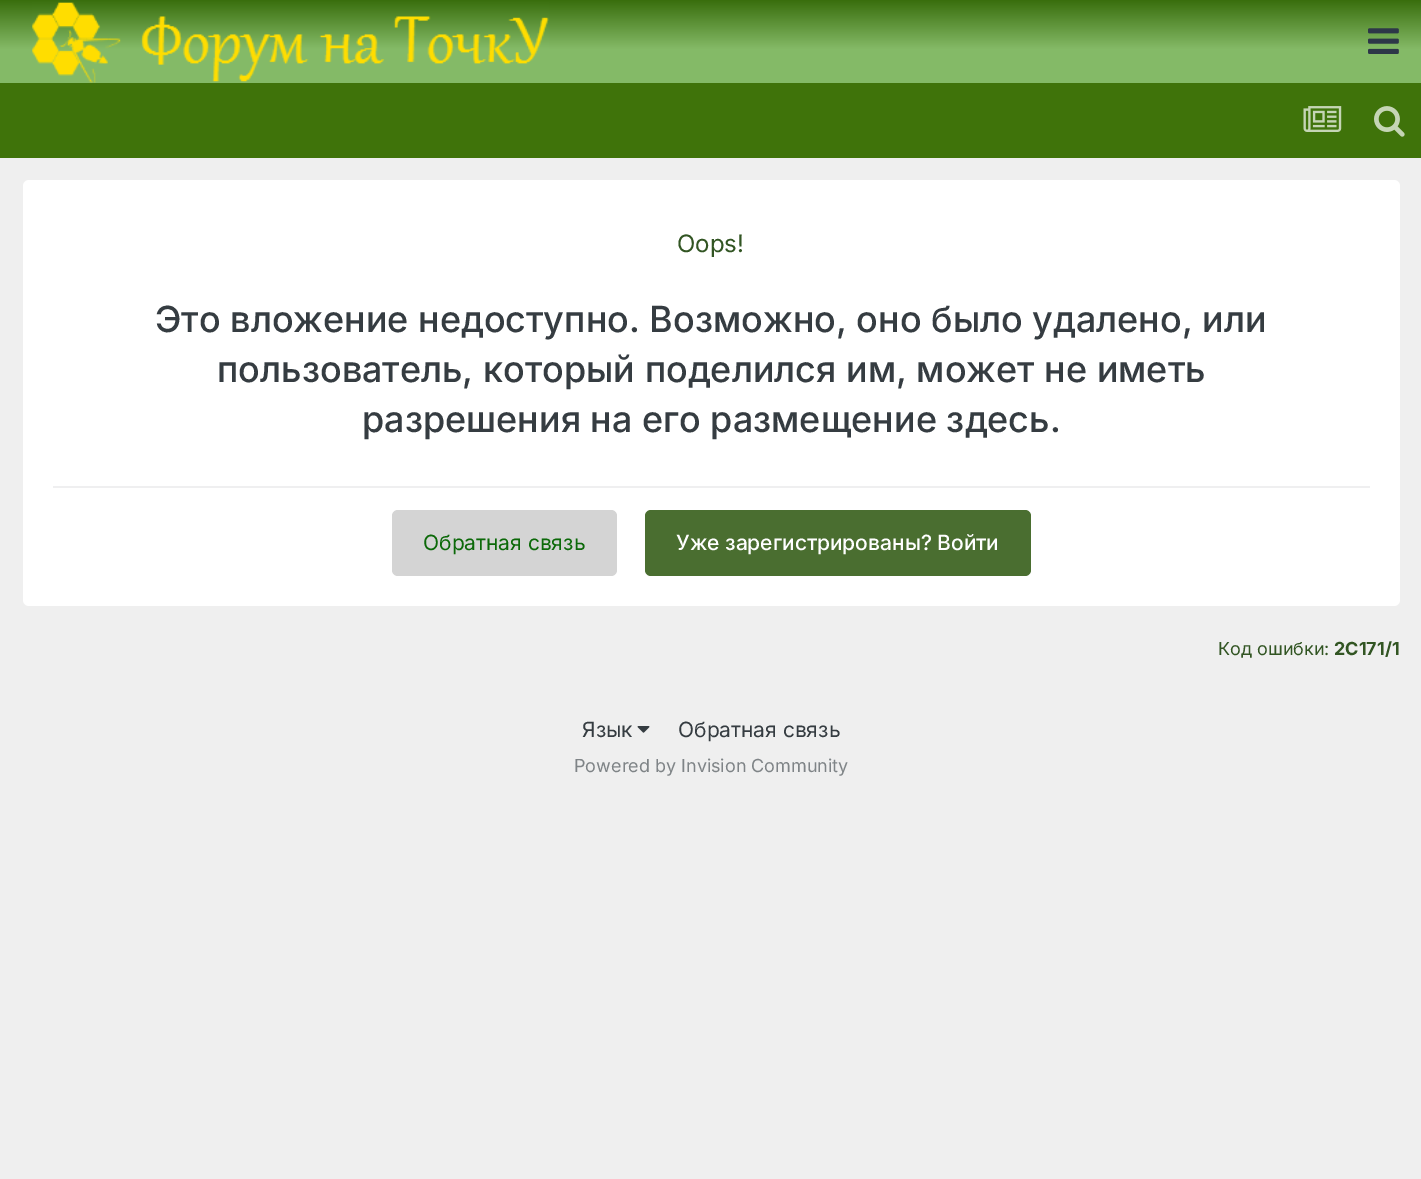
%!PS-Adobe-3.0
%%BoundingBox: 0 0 1421 1179
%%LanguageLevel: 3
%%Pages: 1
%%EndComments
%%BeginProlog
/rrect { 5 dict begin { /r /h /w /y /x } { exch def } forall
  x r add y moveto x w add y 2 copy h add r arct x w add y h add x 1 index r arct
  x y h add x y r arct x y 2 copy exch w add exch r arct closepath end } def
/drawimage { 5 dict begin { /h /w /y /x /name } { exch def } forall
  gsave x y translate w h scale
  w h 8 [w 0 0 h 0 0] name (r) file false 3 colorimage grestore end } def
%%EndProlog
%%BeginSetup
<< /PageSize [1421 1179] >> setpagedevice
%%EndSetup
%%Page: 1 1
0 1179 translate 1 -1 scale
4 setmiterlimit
0.937 setgray
0 0 1421 1179 rectfill
gsave newpath 0 0 moveto 1421 0 lineto 1421 83 lineto 0 83 lineto closepath clip newpath
<< /ShadingType 2 /ColorSpace /DeviceRGB /Coords [711 0 711 83] /Extend [true true] /Function << /FunctionType 3 /Domain [0 1] /Functions [<< /FunctionType 2 /Domain [0 1] /C0 [0.224 0.431 0.051] /C1 [0.518 0.729 0.404] /N 1 >> << /FunctionType 2 /Domain [0 1] /C0 [0.518 0.729 0.404] /C1 [0.518 0.729 0.404] /N 1 >>] /Bounds [0.59] /Encode [0 1 0 1] >> >> shfill grestore
(images/1.raw) 32 2 517 81 drawimage
(images/2.raw) 1368 28 31 26 drawimage
0.247 0.451 0.039 setrgbcolor
0 83 1421 75 rectfill
(images/3.raw) 1303 106 39 26 drawimage
(images/4.raw) 1374 106 31 31 drawimage
1 setgray
23 180 1377 426 6 rrect fill
0.937 0.937 0.941 setrgbcolor
53 486 1317 2 rectfill
0.831 setgray
392 510 225 66 6 rrect fill
0.29 0.431 0.188 setrgbcolor
645 510 386 66 6 rrect fill
(images/5.raw) 637 726 13 7 drawimage
/Inter-Regular [24 0 0 -24 0 0] selectfont
0.196 0.333 0.137 setrgbcolor
677 252 moveto (Oops!) show
/Inter-Medium [36 0 0 -36 0 0] selectfont
0.208 0.235 0.255 setrgbcolor
155 332 moveto (Это вложение недоступно. Возможно, оно было удалено, или) show
217 382 moveto (пользователь, который поделился им, может не иметь) show
362 432 moveto (разрешения на его размещение здесь.) show
/Inter-Regular [21 0 0 -21 0 0] selectfont
0.047 0.412 0.035 setrgbcolor
423 550 moveto (Обратная связь) show
/Inter-Medium [21 0 0 -21 0 0] selectfont
1 setgray
676 550 moveto (Уже зарегистрированы? Войти) show
/Inter-Regular [18 0 0 -18 0 0] selectfont
0.196 0.333 0.137 setrgbcolor
1218 655 moveto (Код ошибки:) show
/Inter-Bold [18 0 0 -18 0 0] selectfont
1334 655 moveto (2C171/1) show
/Inter-Regular [21 0 0 -21 0 0] selectfont
0.208 0.235 0.255 setrgbcolor
582 737 moveto (Язык) show
678 737 moveto (Обратная связь) show
/Inter-Regular [18 0 0 -18 0 0] selectfont
0.498 0.518 0.529 setrgbcolor
574 772 moveto (Powered by Invision Community) show
showpage
%%EOF
